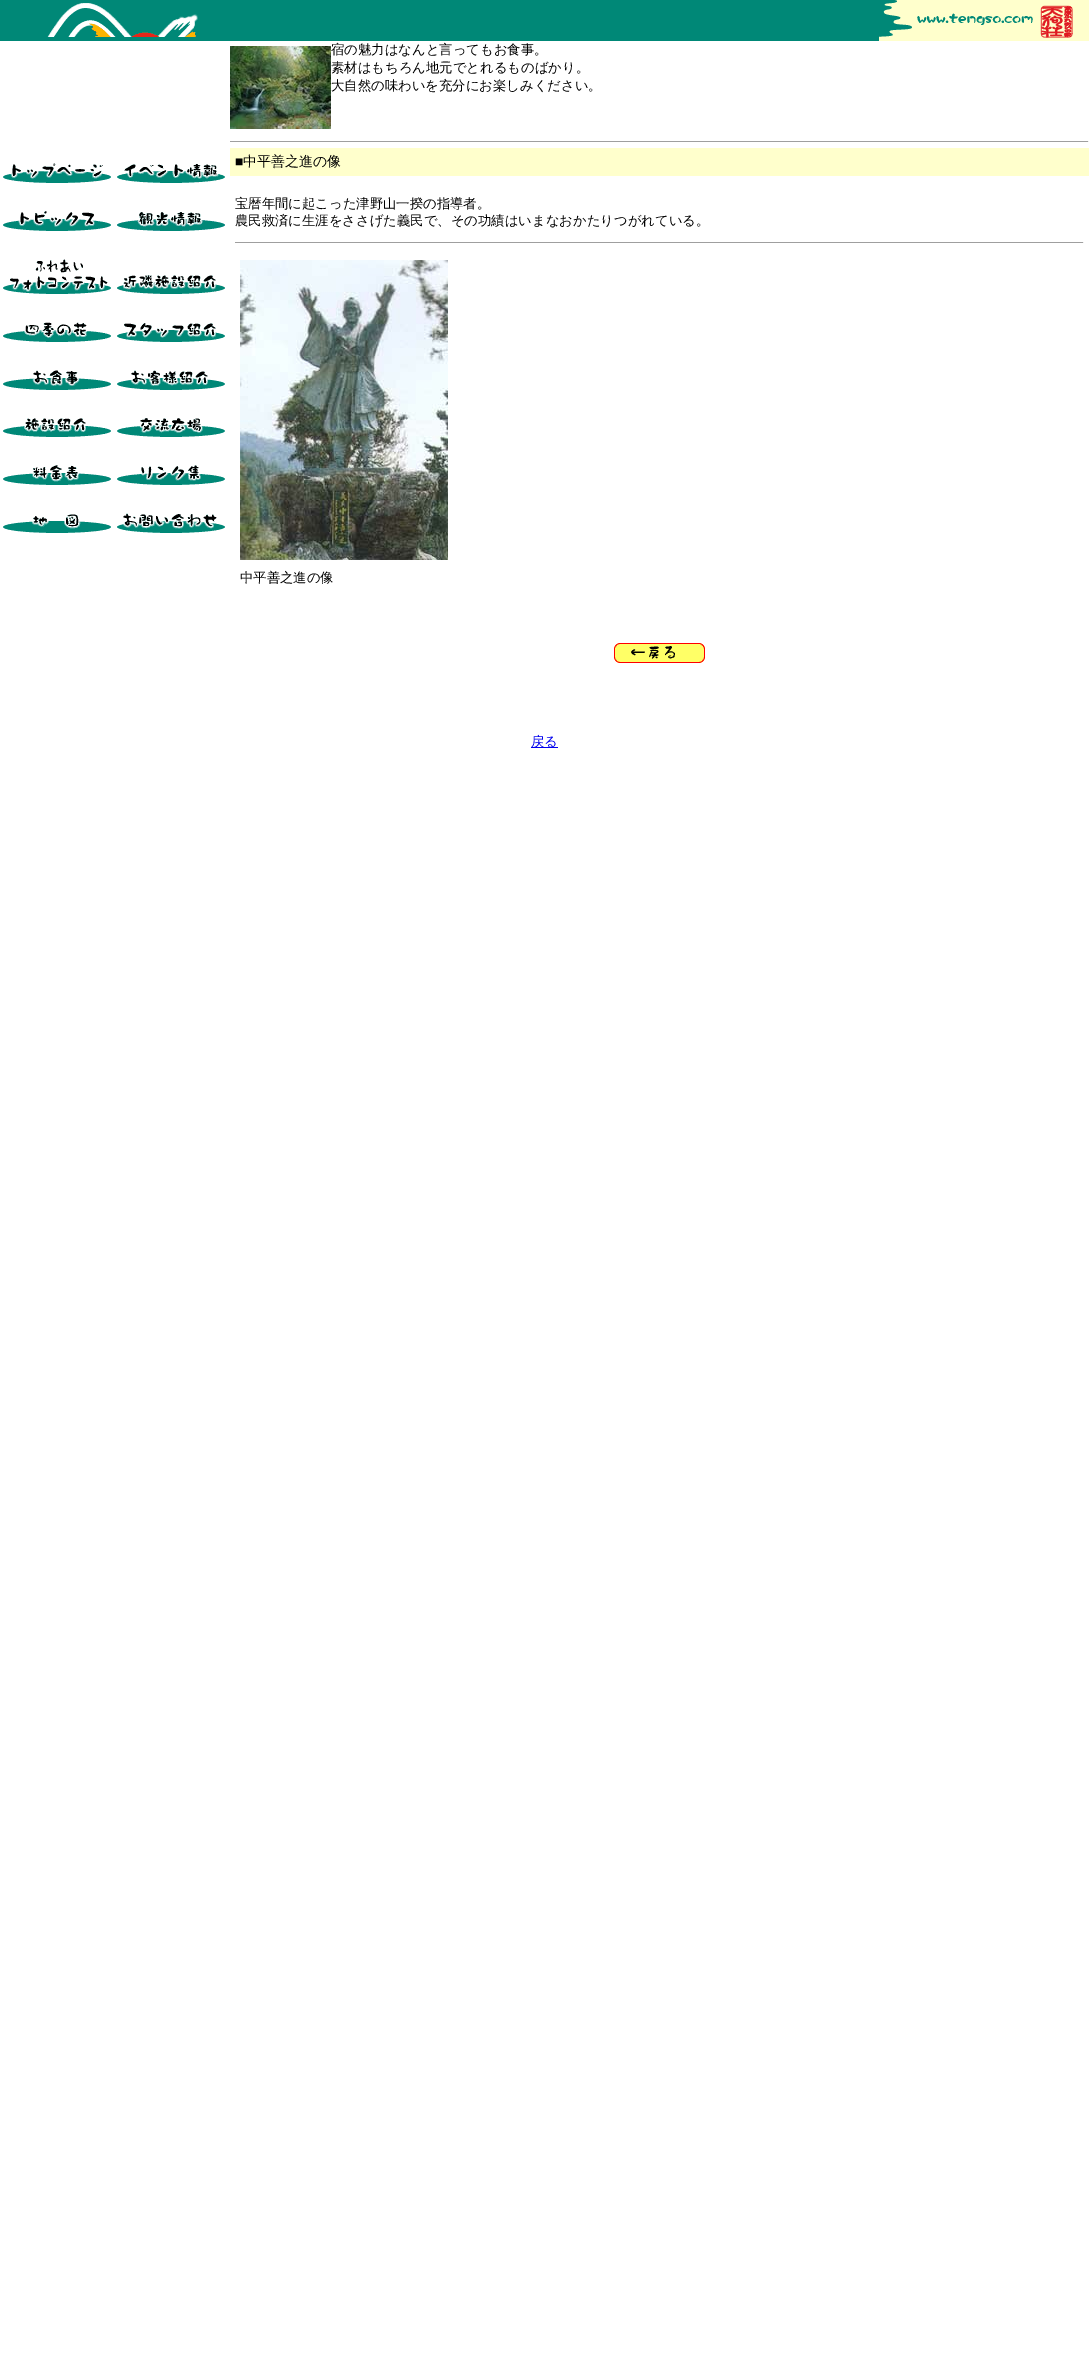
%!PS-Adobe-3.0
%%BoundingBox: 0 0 1089 2373
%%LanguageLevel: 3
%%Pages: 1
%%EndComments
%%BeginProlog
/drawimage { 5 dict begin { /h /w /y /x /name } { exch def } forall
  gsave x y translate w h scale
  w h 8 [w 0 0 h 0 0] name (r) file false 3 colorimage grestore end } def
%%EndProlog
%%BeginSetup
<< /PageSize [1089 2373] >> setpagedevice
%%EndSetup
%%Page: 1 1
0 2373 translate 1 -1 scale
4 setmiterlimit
1 setgray
0 0 1089 2373 rectfill
0 0.533 0.467 setrgbcolor
0 0 879 41 rectfill
(images/1.raw) 47 3 151 34 drawimage
1 1 0.8 setrgbcolor
879 0 210 41 rectfill
(images/2.raw) 879 0 33 37 drawimage
(images/3.raw) 917 13 116 12 drawimage
(images/4.raw) 1040 5 33 33 drawimage
(images/5.raw) 3 163 108 20 drawimage
(images/6.raw) 117 164 108 19 drawimage
(images/7.raw) 3 211 108 20 drawimage
(images/8.raw) 117 212 108 19 drawimage
(images/9.raw) 3 259 108 35 drawimage
(images/10.raw) 117 275 108 19 drawimage
(images/11.raw) 3 322 108 20 drawimage
(images/12.raw) 117 323 108 19 drawimage
(images/13.raw) 3 370 108 20 drawimage
(images/14.raw) 117 370 108 20 drawimage
(images/15.raw) 3 418 108 19 drawimage
(images/16.raw) 117 418 108 19 drawimage
(images/17.raw) 3 465 108 20 drawimage
(images/18.raw) 117 465 108 20 drawimage
(images/19.raw) 3 514 108 19 drawimage
(images/20.raw) 117 513 108 20 drawimage
(images/21.raw) 230 46 101 83 drawimage
0.624 setgray
230 141 859 1 rectfill
0.933 setgray
1088 141 1 1 rectfill
1 1 0.8 setrgbcolor
230 148 859 28 rectfill
0.624 setgray
235 242 849 1 rectfill
0.933 setgray
1083 242 1 1 rectfill
(images/22.raw) 240 260 208 300 drawimage
(images/23.raw) 614 643 91 20 drawimage
0 0 0.933 setrgbcolor
531 747 27 1 rectfill
/WenQuanYiZenHei-Medium [13.35 0 0 -13.35 0 0] selectfont
0 setgray
331 54 moveto (宿の魅力はなんと言ってもお食事。) show
331 72 moveto (素材はもちろん地元でとれるものばかり。) show
331 90 moveto (大自然の味わいを充分にお楽しみください。) show
/LiberationSerif-Regular [14 0 0 -14 0 0] selectfont
235 166 moveto (■) show
/WenQuanYiZenHei-Medium [14 0 0 -14 0 0] selectfont
243 166 moveto (中平善之進の像) show
/WenQuanYiZenHei-Medium [13.35 0 0 -13.35 0 0] selectfont
235 208 moveto (宝暦年間に起こった津野山一揆の指導者。) show
235 225 moveto (農民救済に生涯をささげた義民で、その功績はいまなおかたりつがれている。) show
240 582 moveto (中平善之進の像) show
0 0 0.933 setrgbcolor
531 746 moveto (戻る) show
showpage
%%EOF
